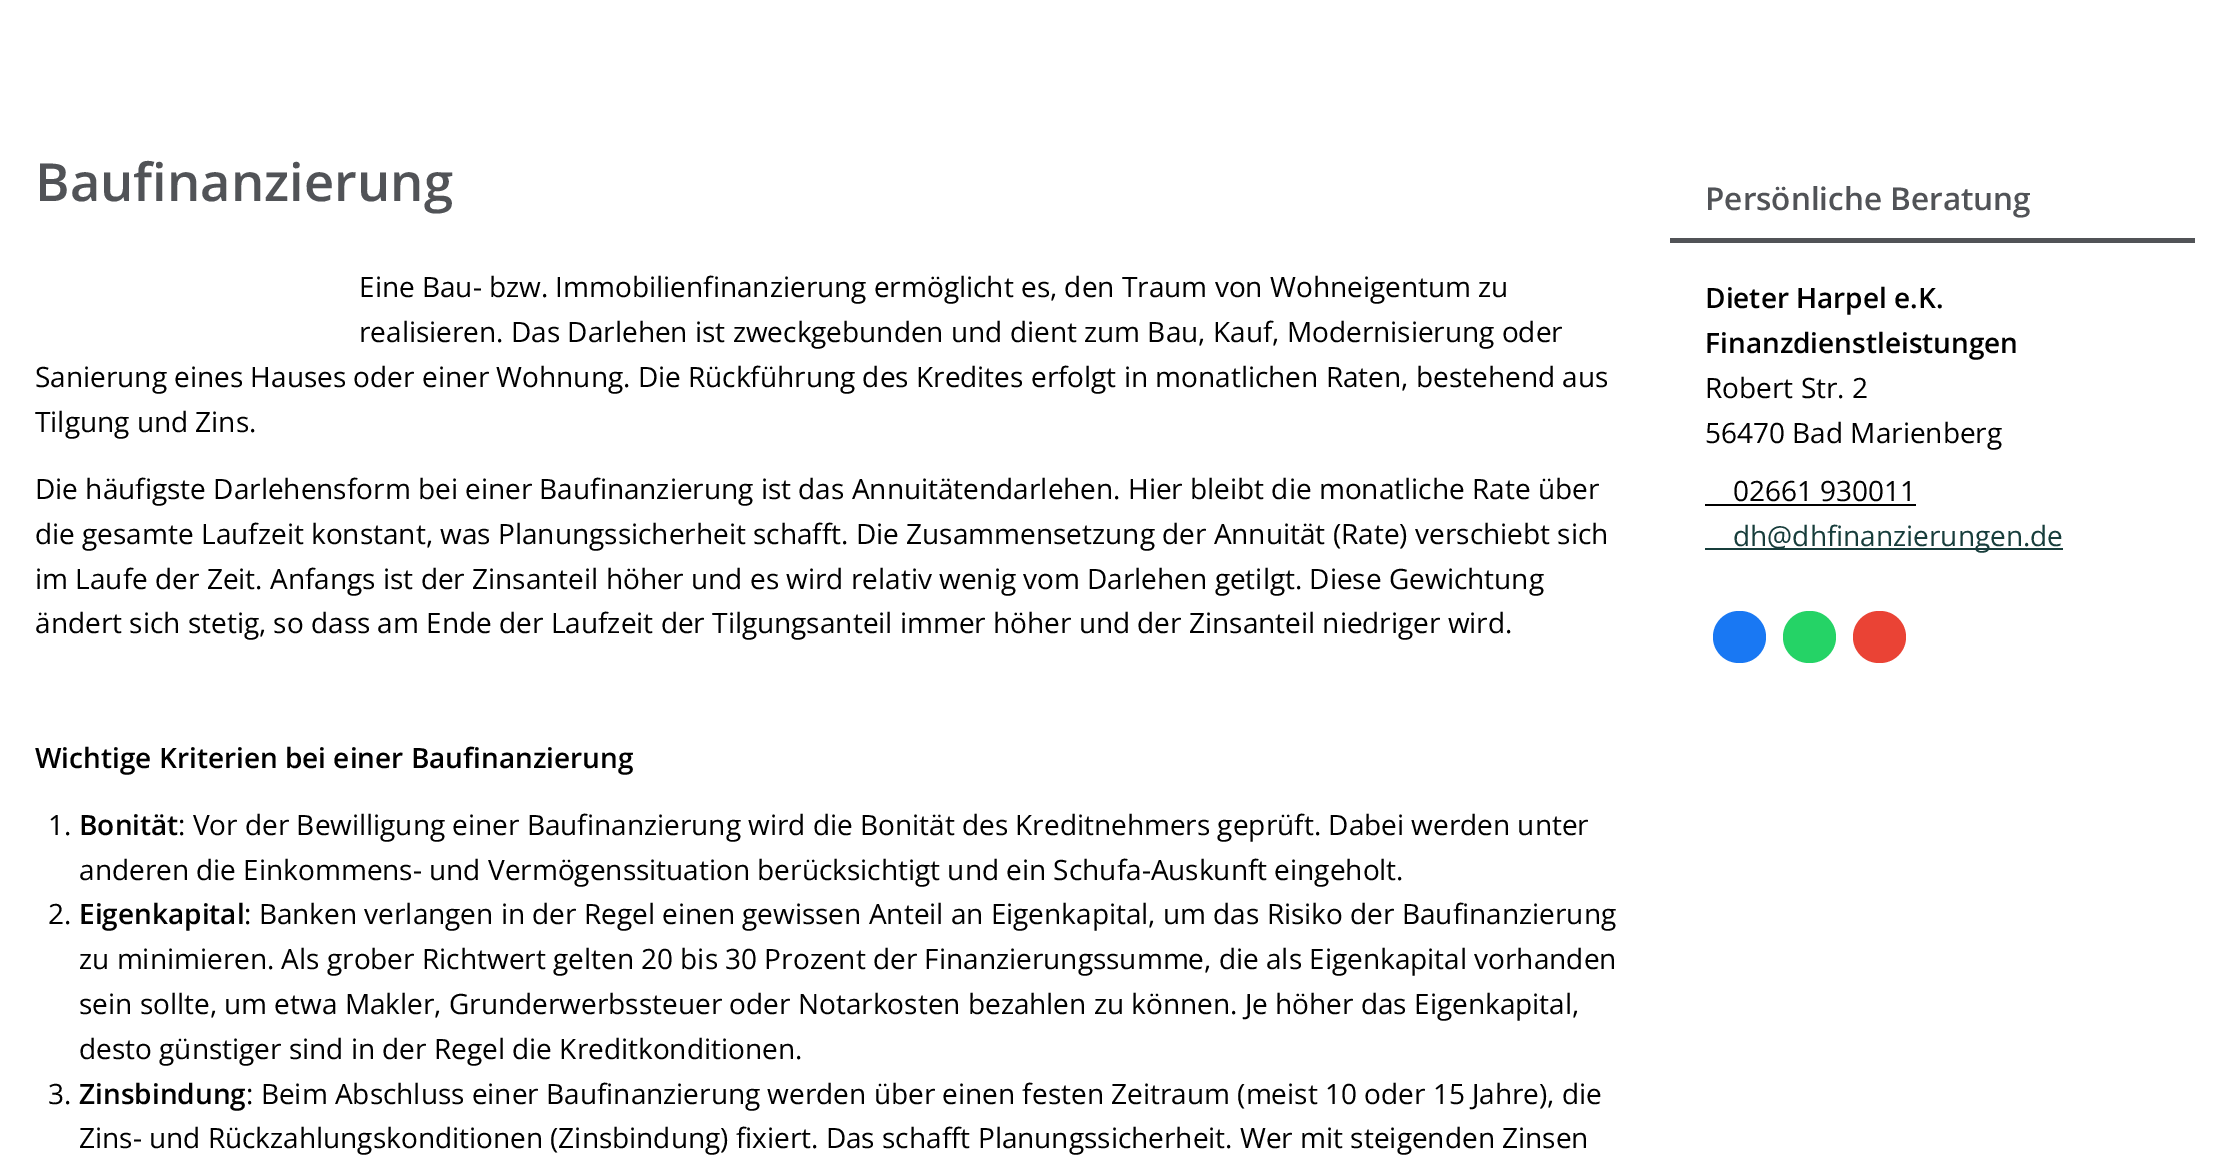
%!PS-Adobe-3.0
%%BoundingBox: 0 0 2228 1174
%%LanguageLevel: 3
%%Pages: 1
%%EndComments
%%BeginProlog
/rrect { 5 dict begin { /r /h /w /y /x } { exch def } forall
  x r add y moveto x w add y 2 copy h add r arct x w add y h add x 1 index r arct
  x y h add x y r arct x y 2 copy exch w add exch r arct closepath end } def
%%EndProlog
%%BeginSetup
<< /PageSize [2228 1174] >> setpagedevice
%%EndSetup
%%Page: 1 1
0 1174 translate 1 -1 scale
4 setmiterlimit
1 setgray
0 0 2228 1174 rectfill
0.318 0.325 0.341 setrgbcolor
1670 238 525 5 rectfill
0 setgray
1705 504 211 2 rectfill
0.09 0.239 0.231 setrgbcolor
1705 548 358 2 rectfill
0.098 0.471 0.953 setrgbcolor
1713 611 53 52 26 rrect fill
0.145 0.827 0.4 setrgbcolor
1783 611 53 52 26 rrect fill
0.918 0.263 0.208 setrgbcolor
1853 611 53 52 26 rrect fill
/OpenSans-SemiBold [52.5 0 0 -52.5 0 0] selectfont
0.318 0.325 0.341 setrgbcolor
35 201 moveto (Baufinanzierung) show
/OpenSans-Regular [28 0 0 -28 0 0] selectfont
0 setgray
359 297 moveto (Eine Bau- bzw. Immobilienfinanzierung ermöglicht es, den Traum von Wohneigentum zu) show
359 342 moveto (realisieren. Das Darlehen ist zweckgebunden und dient zum Bau, Kauf, Modernisierung oder) show
35 387 moveto (Sanierung eines Hauses oder einer Wohnung. Die Rückführung des Kredites erfolgt in monatlichen Raten, bestehend aus) show
35 432 moveto (Tilgung und Zins.) show
35 499 moveto (Die häufigste Darlehensform bei einer Baufinanzierung ist das Annuitätendarlehen. Hier bleibt die monatliche Rate über) show
35 544 moveto (die gesamte Laufzeit konstant, was Planungssicherheit schafft. Die Zusammensetzung der Annuität \(Rate\) verschiebt sich) show
35 589 moveto (im Laufe der Zeit. Anfangs ist der Zinsanteil höher und es wird relativ wenig vom Darlehen getilgt. Diese Gewichtung) show
35 633 moveto (ändert sich stetig, so dass am Ende der Laufzeit der Tilgungsanteil immer höher und der Zinsanteil niedriger wird.) show
/OpenSans-SemiBold [28 0 0 -28 0 0] selectfont
35 768 moveto (Wichtige Kriterien bei einer Baufinanzierung) show
/OpenSans-Regular [28 0 0 -28 0 0] selectfont
48 835 moveto (1.) show
/OpenSans-SemiBold [28 0 0 -28 0 0] selectfont
79 835 moveto (Bonität) show
/OpenSans-Regular [28 0 0 -28 0 0] selectfont
178 835 moveto (: Vor der Bewilligung einer Baufinanzierung wird die Bonität des Kreditnehmers geprüft. Dabei werden unter) show
79 880 moveto (anderen die Einkommens- und Vermögenssituation berücksichtigt und ein Schufa-Auskunft eingeholt.) show
48 924 moveto (2.) show
/OpenSans-SemiBold [28 0 0 -28 0 0] selectfont
79 924 moveto (Eigenkapital) show
/OpenSans-Regular [28 0 0 -28 0 0] selectfont
244 924 moveto (: Banken verlangen in der Regel einen gewissen Anteil an Eigenkapital, um das Risiko der Baufinanzierung) show
79 969 moveto (zu minimieren. Als grober Richtwert gelten 20 bis 30 Prozent der Finanzierungssumme, die als Eigenkapital vorhanden) show
79 1014 moveto (sein sollte, um etwa Makler, Grunderwerbssteuer oder Notarkosten bezahlen zu können. Je höher das Eigenkapital,) show
79 1059 moveto (desto günstiger sind in der Regel die Kreditkonditionen.) show
48 1104 moveto (3.) show
/OpenSans-SemiBold [28 0 0 -28 0 0] selectfont
79 1104 moveto (Zinsbindung) show
/OpenSans-Regular [28 0 0 -28 0 0] selectfont
246 1104 moveto (: Beim Abschluss einer Baufinanzierung werden über einen festen Zeitraum \(meist 10 oder 15 Jahre\), die) show
79 1148 moveto (Zins- und Rückzahlungskonditionen \(Zinsbindung\) fixiert. Das schafft Planungssicherheit. Wer mit steigenden Zinsen) show
/OpenSans-SemiBold [31.5 0 0 -31.5 0 0] selectfont
0.318 0.325 0.341 setrgbcolor
1705 210 moveto (Persönliche Beratung) show
/OpenSans-SemiBold [28 0 0 -28 0 0] selectfont
0 setgray
1705 308 moveto (Dieter Harpel e.K.) show
1705 353 moveto (Finanzdienstleistungen) show
/OpenSans-Regular [28 0 0 -28 0 0] selectfont
1705 398 moveto (Robert Str. 2) show
1705 443 moveto (56470 Bad Marienberg) show
1733 501 moveto (02661 930011) show
0.09 0.239 0.231 setrgbcolor
1733 546 moveto (dh@dhfinanzierungen.de) show
showpage
%%EOF
